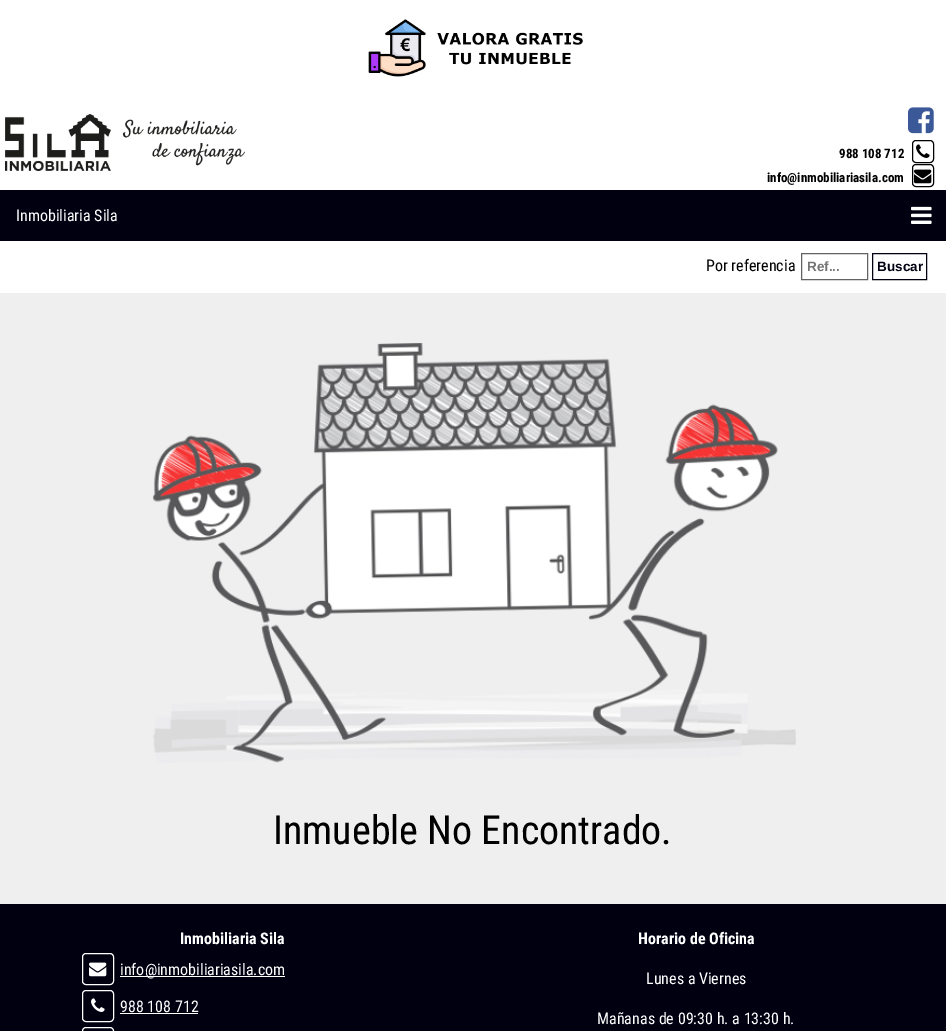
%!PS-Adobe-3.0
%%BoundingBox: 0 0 946 1031
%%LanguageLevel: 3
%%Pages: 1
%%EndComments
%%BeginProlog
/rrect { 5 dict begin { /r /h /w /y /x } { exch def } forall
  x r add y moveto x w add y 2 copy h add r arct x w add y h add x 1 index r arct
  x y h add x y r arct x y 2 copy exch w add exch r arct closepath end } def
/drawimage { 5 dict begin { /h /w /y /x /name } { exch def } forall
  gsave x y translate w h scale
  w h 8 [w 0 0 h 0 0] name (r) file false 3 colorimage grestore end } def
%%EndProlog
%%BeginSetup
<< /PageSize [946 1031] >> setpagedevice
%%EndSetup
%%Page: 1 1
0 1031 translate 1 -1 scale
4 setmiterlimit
1 setgray
0 0 946 1031 rectfill
(images/1.raw) 368 19 215 58 drawimage
(images/2.raw) 5 114 240 57 drawimage
(images/3.raw) 908 107 26 27 drawimage
0 setgray
912.5 140.5 21 22 3.5 rrect stroke
(images/4.raw) 916 144 14 14 drawimage
912.5 164.5 21 22 3.5 rrect stroke
(images/5.raw) 914 169 18 15 drawimage
0 0 0.067 setrgbcolor
0 190 946 51 rectfill
(images/6.raw) 911 206 21 18 drawimage
0.388 setgray
801.5 253.5 66 26 rectstroke
0 0 0.067 setrgbcolor
872.5 253.5 54 26 rectstroke
0.937 setgray
0 293 946 611 rectfill
(images/7.raw) 152 343 644 420 drawimage
0 0 0.067 setrgbcolor
0 904 946 127 rectfill
1 setgray
82.5 953.5 31 31 3.5 rrect stroke
(images/8.raw) 89 962 18 15 drawimage
120 976 165 1 rectfill
82.5 990.5 31 31 3.5 rrect stroke
(images/9.raw) 91 998 14 14 drawimage
120 1013 78 1 rectfill
82.5 1027.5 31 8 3.5 rrect stroke
/RobotoCondensed-Bold [13 0 0 -13 0 0] selectfont
0 setgray
839 158 moveto (988 108 712) show
767 182 moveto (info@inmobiliariasila.com) show
/RobotoCondensed-Regular [16 0 0 -16 0 0] selectfont
1 setgray
16 221 moveto (Inmobiliaria Sila) show
0 setgray
706 271 moveto (Por referencia) show
/LiberationSans-Bold [13.5 0 0 -13.5 0 0] selectfont
0.459 setgray
807 271 moveto (Ref...) show
0 0 0.067 setrgbcolor
877 271 moveto (Buscar) show
/RobotoCondensed-Regular [40 0 0 -40 0 0] selectfont
0 setgray
273 844 moveto (Inmueble No Encontrado.) show
/RobotoCondensed-Bold [16 0 0 -16 0 0] selectfont
1 setgray
180 944 moveto (Inmobiliaria Sila) show
/RobotoCondensed-Regular [16 0 0 -16 0 0] selectfont
120 975 moveto (info@inmobiliariasila.com) show
120 1012 moveto (988 108 712) show
/RobotoCondensed-Bold [16 0 0 -16 0 0] selectfont
638 944 moveto (Horario de Oficina) show
/RobotoCondensed-Regular [16 0 0 -16 0 0] selectfont
646 984 moveto (Lunes a Viernes) show
597 1024 moveto (Mañanas de 09:30 h. a 13:30 h.) show
showpage
%%EOF
